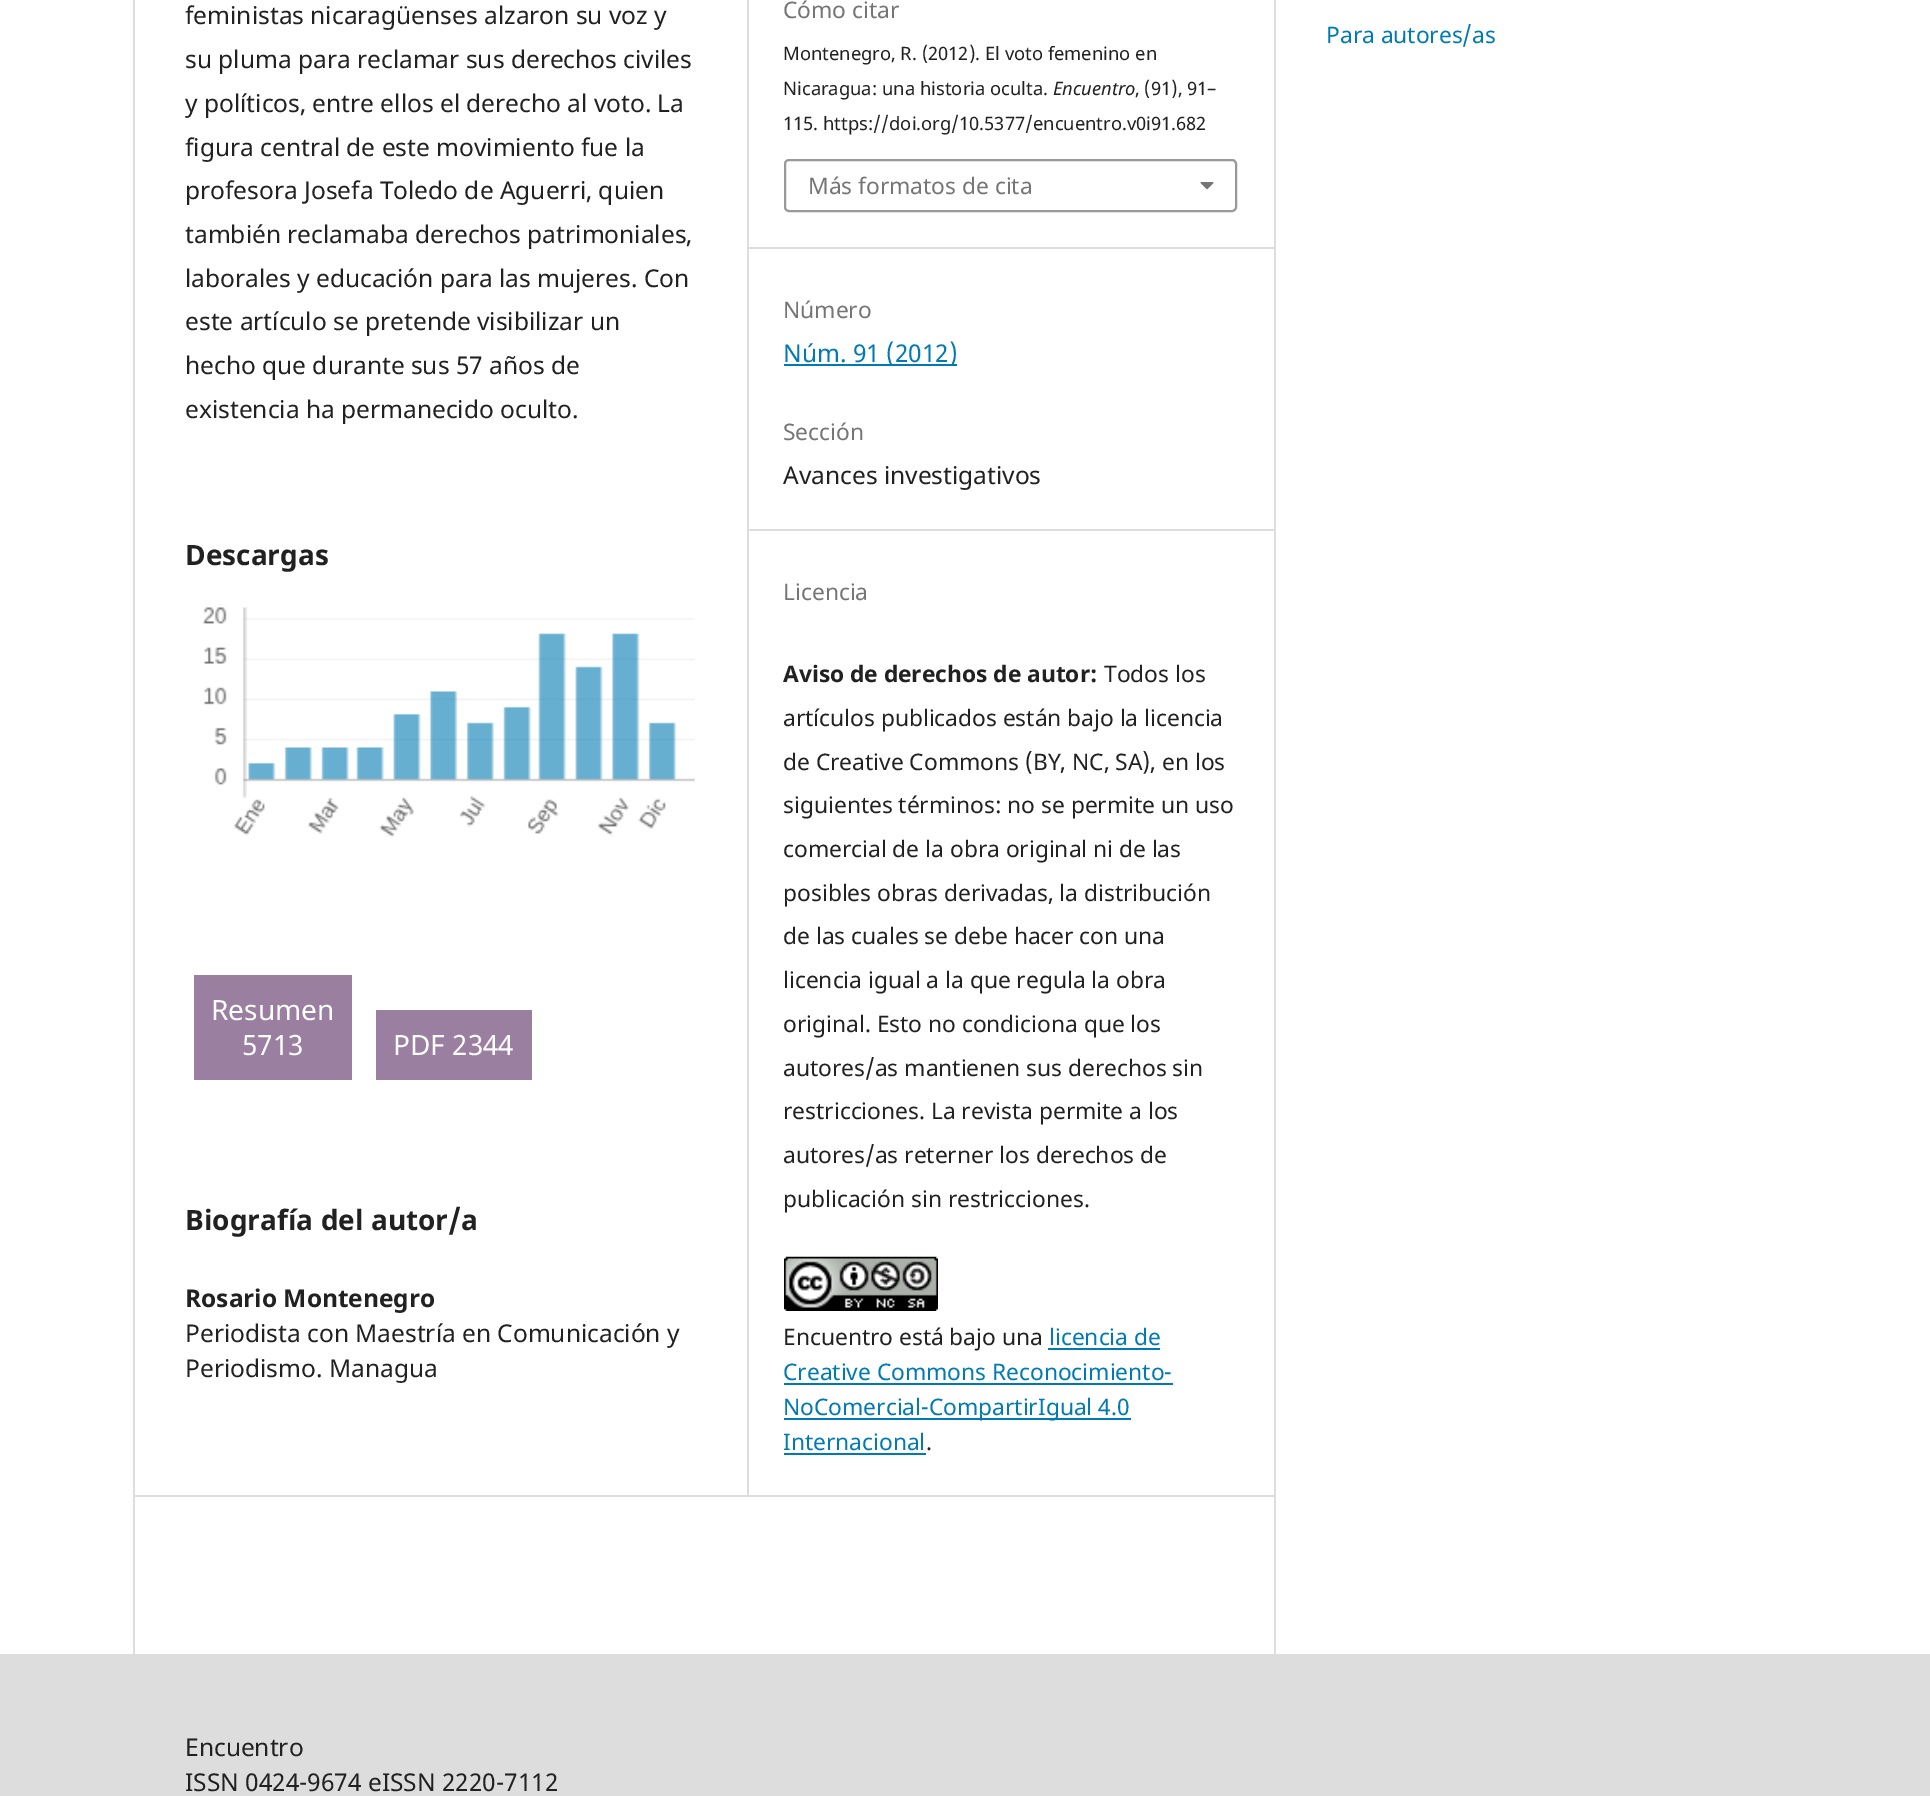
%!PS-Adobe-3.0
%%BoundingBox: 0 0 1930 1796
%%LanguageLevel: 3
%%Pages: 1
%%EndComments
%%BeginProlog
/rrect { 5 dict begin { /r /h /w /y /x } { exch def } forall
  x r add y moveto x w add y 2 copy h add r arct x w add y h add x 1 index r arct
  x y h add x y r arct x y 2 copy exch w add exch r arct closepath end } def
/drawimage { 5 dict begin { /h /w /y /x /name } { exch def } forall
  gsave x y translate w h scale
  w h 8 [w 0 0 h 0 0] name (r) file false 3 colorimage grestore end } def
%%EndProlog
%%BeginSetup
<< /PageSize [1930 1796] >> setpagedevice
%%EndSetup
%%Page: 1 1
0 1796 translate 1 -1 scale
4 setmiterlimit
1 setgray
0 0 1930 1796 rectfill
0.867 setgray
133 1495 1141 2 rectfill
133 0 2 1654 rectfill
(images/1.raw) 202 607 493 230 drawimage
0.604 0.498 0.627 setrgbcolor
194 975 158 105 rectfill
376 1010 156 70 rectfill
0.867 setgray
747 0 2 1495 rectfill
749 247 525 2 rectfill
0.6 setgray
2 setlinewidth
785 160 451 51 4 rrect stroke
(images/2.raw) 1200 182 14 8 drawimage
0.867 setgray
749 529 525 2 rectfill
0 0.478 0.698 setrgbcolor
784 364 173 2 rectfill
(images/3.raw) 784 1256 154 55 drawimage
1048 1348 112 2 rectfill
784 1383 389 2 rectfill
784 1418 347 2 rectfill
784 1453 142 2 rectfill
0.867 setgray
1274 0 2 1654 rectfill
0 1654 1930 142 rectfill
/NotoSans-Regular [24.5 0 0 -24.5 0 0] selectfont
0.129 setgray
185 24 moveto (feministas nicaragüenses alzaron su voz y) show
185 68 moveto (su pluma para reclamar sus derechos civiles) show
185 112 moveto (y políticos, entre ellos el derecho al voto. La) show
185 156 moveto (figura central de este movimiento fue la) show
185 199 moveto (profesora Josefa Toledo de Aguerri, quien) show
185 243 moveto (también reclamaba derechos patrimoniales,) show
185 287 moveto (laborales y educación para las mujeres. Con) show
185 330 moveto (este artículo se pretende visibilizar un) show
185 374 moveto (hecho que durante sus 57 años de) show
185 418 moveto (existencia ha permanecido oculto.) show
/NotoSans-Bold [28 0 0 -28 0 0] selectfont
185 565 moveto (Descargas) show
/NotoSans-Regular [28 0 0 -28 0 0] selectfont
1 setgray
211 1020 moveto (Resumen) show
242 1055 moveto (5713) show
393 1055 moveto (PDF 2344) show
/NotoSans-Bold [28 0 0 -28 0 0] selectfont
0.129 setgray
185 1230 moveto (Biografía del autor/a) show
/NotoSans-Bold [24.5 0 0 -24.5 0 0] selectfont
185 1307 moveto (Rosario Montenegro) show
/NotoSans-Regular [24.5 0 0 -24.5 0 0] selectfont
185 1342 moveto (Periodista con Maestría en Comunicación y) show
185 1377 moveto (Periodismo. Managua) show
/NotoSans-Regular [22.75 0 0 -22.75 0 0] selectfont
0.459 setgray
783 18 moveto (Cómo citar) show
/NotoSans-Regular [18.4 0 0 -18.4 0 0] selectfont
0.129 setgray
783 60 moveto (Montenegro, R. \(2012\). El voto femenino en) show
783 95 moveto (Nicaragua: una historia oculta.) show
/NotoSans-Italic [18.4 0 0 -18.4 0 0] selectfont
1053 95 moveto (Encuentro) show
/NotoSans-Regular [18.4 0 0 -18.4 0 0] selectfont
1135 95 moveto (, \(91\), 91–) show
783 130 moveto (115. https://doi.org/10.5377/encuentro.v0i91.682) show
/NotoSans-Regular [22.75 0 0 -22.75 0 0] selectfont
0.459 setgray
808 194 moveto (Más formatos de cita) show
783 318 moveto (Número) show
/NotoSans-Regular [24.5 0 0 -24.5 0 0] selectfont
0 0.478 0.698 setrgbcolor
783 362 moveto (Núm. 91 \(2012\)) show
/NotoSans-Regular [22.75 0 0 -22.75 0 0] selectfont
0.459 setgray
783 440 moveto (Sección) show
/NotoSans-Regular [24.5 0 0 -24.5 0 0] selectfont
0.129 setgray
783 484 moveto (Avances investigativos) show
/NotoSans-Regular [22.75 0 0 -22.75 0 0] selectfont
0.459 setgray
783 600 moveto (Licencia) show
/NotoSans-Bold [22.75 0 0 -22.75 0 0] selectfont
0.129 setgray
783 682 moveto (Aviso de derechos de autor:) show
/NotoSans-Regular [22.75 0 0 -22.75 0 0] selectfont
1104 682 moveto (Todos los) show
783 726 moveto (artículos publicados están bajo la licencia) show
783 770 moveto (de Creative Commons \(BY, NC, SA\), en los) show
783 813 moveto (siguientes términos: no se permite un uso) show
783 857 moveto (comercial de la obra original ni de las) show
783 901 moveto (posibles obras derivadas, la distribución) show
783 944 moveto (de las cuales se debe hacer con una) show
783 988 moveto (licencia igual a la que regula la obra) show
783 1032 moveto (original. Esto no condiciona que los) show
783 1076 moveto (autores/as mantienen sus derechos sin) show
783 1119 moveto (restricciones. La revista permite a los) show
783 1163 moveto (autores/as reterner los derechos de) show
783 1207 moveto (publicación sin restricciones.) show
783 1345 moveto (Encuentro está bajo una) show
0 0.478 0.698 setrgbcolor
1049 1345 moveto (licencia de) show
783 1380 moveto (Creative Commons Reconocimiento-) show
783 1415 moveto (NoComercial-CompartirIgual 4.0) show
783 1450 moveto (Internacional) show
0.129 setgray
926 1450 moveto (.) show
0 0.478 0.698 setrgbcolor
1326 43 moveto (Para autores/as) show
/NotoSans-Regular [24.5 0 0 -24.5 0 0] selectfont
0.129 setgray
185 1756 moveto (Encuentro) show
185 1791 moveto (ISSN 0424-9674 eISSN 2220-7112) show
showpage
%%EOF
